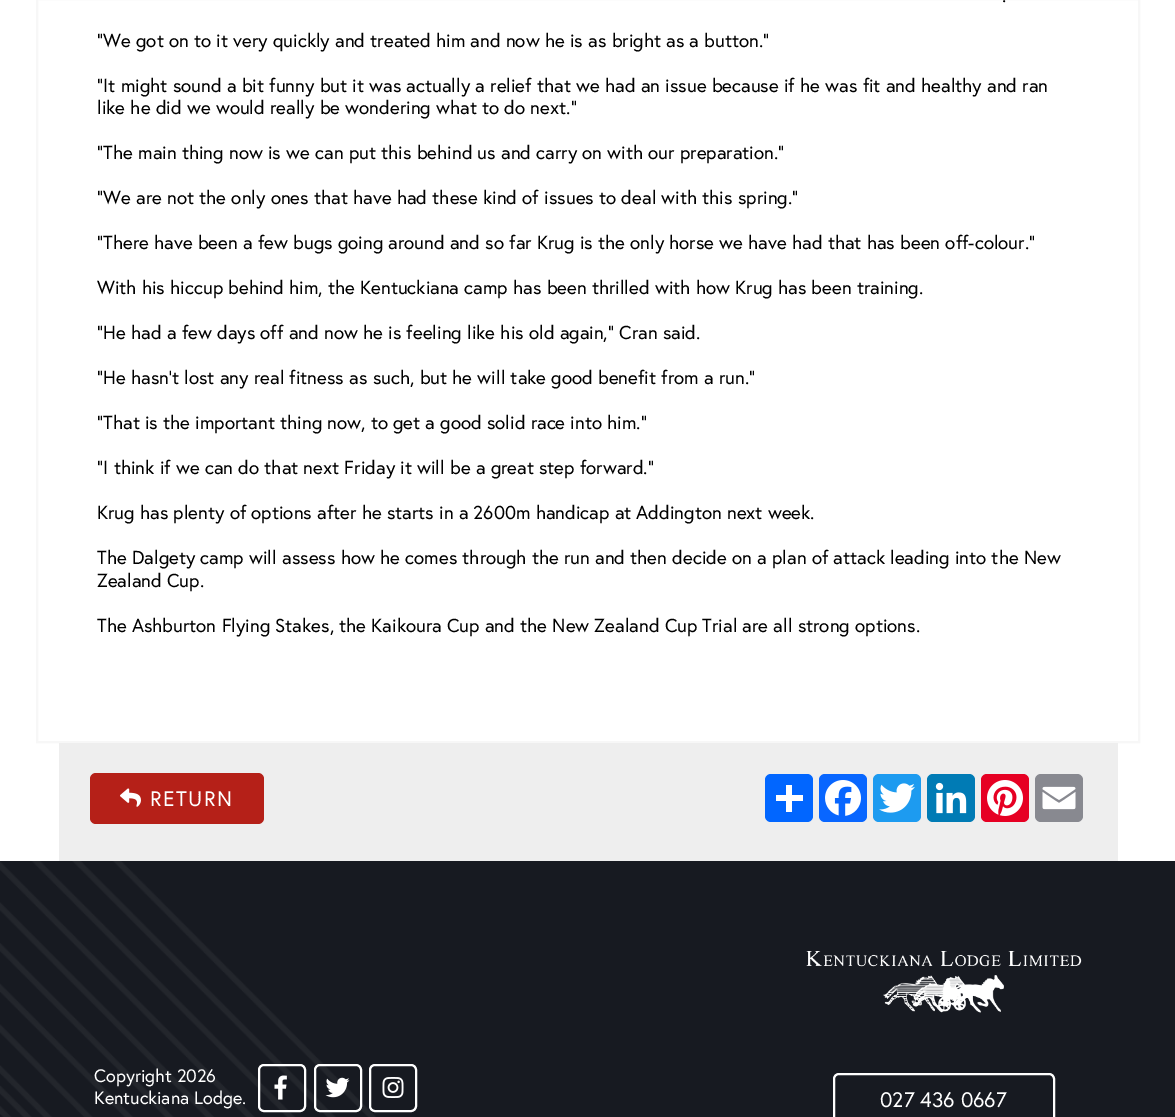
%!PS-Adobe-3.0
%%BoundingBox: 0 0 1175 1117
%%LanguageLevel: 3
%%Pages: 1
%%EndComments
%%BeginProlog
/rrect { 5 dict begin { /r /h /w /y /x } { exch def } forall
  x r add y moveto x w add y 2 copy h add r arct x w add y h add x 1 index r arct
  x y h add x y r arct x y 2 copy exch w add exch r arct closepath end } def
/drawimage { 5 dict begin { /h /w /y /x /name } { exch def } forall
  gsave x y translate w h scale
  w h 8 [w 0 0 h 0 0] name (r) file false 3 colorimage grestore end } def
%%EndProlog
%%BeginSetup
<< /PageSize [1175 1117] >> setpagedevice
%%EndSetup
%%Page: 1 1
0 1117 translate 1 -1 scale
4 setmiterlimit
1 setgray
0 0 1175 1117 rectfill
0.969 setgray
2 setlinewidth
37 -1 1102 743 rectstroke
0.933 setgray
59 743 1059 118 rectfill
0.71 0.125 0.094 setrgbcolor
90 773 174 51 6 rrect fill
(images/1.raw) 120 788 21 19 drawimage
0.004 0.4 1 setrgbcolor
765 774 48 48 6 rrect fill
1 setgray
786 785 6 27 rectfill
776 795 27 6 rectfill
0.031 0.4 1 setrgbcolor
819 774 48 48 6 rrect fill
(images/2.raw) 825 780 36 36 drawimage
0.114 0.608 0.941 setrgbcolor
873 774 48 48 6 rrect fill
(images/3.raw) 879 783 36 30 drawimage
0 0.482 0.71 setrgbcolor
927 774 48 48 6 rrect fill
(images/4.raw) 935 782 32 32 drawimage
0.902 0 0.137 setrgbcolor
981 774 48 48 6 rrect fill
(images/5.raw) 987 780 36 36 drawimage
0.533 0.537 0.565 setrgbcolor
1035 774 48 48 6 rrect fill
(images/6.raw) 1042 786 34 24 drawimage
0.09 0.102 0.129 setrgbcolor
0 861 1175 256 rectfill
(images/7.raw) 0 861 376 256 drawimage
1 setgray
259 1065 46 46 5 rrect stroke
(images/8.raw) 274 1075 13 25 drawimage
315 1065 46 46 5 rrect stroke
(images/9.raw) 325 1077 25 21 drawimage
370 1065 46 46 5 rrect stroke
(images/10.raw) 382 1077 22 21 drawimage
(images/11.raw) 806 951 276 62 drawimage
834 1074 220 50 5 rrect stroke
/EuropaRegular-Regular [18.75 0 0 -18.75 0 0] selectfont
0 setgray
1002 2 moveto (.) show
97 47 moveto (“We got on to it very quickly and treated him and now he is as bright as a button.”) show
97 92 moveto (“It might sound a bit funny but it was actually a relief that we had an issue because if he was fit and healthy and ran) show
97 114 moveto (like he did we would really be wondering what to do next.”) show
97 159 moveto (“The main thing now is we can put this behind us and carry on with our preparation.”) show
97 204 moveto (“We are not the only ones that have had these kind of issues to deal with this spring.”) show
97 249 moveto (“There have been a few bugs going around and so far Krug is the only horse we have had that has been off-colour.”) show
97 294 moveto (With his hiccup behind him, the Kentuckiana camp has been thrilled with how Krug has been training.) show
97 339 moveto (“He had a few days off and now he is feeling like his old again,” Cran said.) show
97 384 moveto (“He hasn’t lost any real fitness as such, but he will take good benefit from a run.”) show
97 429 moveto (“That is the important thing now, to get a good solid race into him.”) show
97 474 moveto (“I think if we can do that next Friday it will be a great step forward.”) show
97 519 moveto (Krug has plenty of options after he starts in a 2600m handicap at Addington next week.) show
97 564 moveto (The Dalgety camp will assess how he comes through the run and then decide on a plan of attack leading into the New) show
97 587 moveto (Zealand Cup.) show
97 632 moveto (The Ashburton Flying Stakes, the Kaikoura Cup and the New Zealand Cup Trial are all strong options.) show
/EuropaRegular-Regular [21 0 0 -21 0 0] selectfont
1 setgray
150 806 moveto 1.5 0 (RETURN) ashow
/EuropaRegular-Regular [18 0 0 -18 0 0] selectfont
94 1082 moveto (Copyright 2026) show
94 1104 moveto (Kentuckiana Lodge.) show
/EuropaRegular-Regular [21 0 0 -21 0 0] selectfont
880 1107 moveto (027 436 0667) show
showpage
%%EOF
